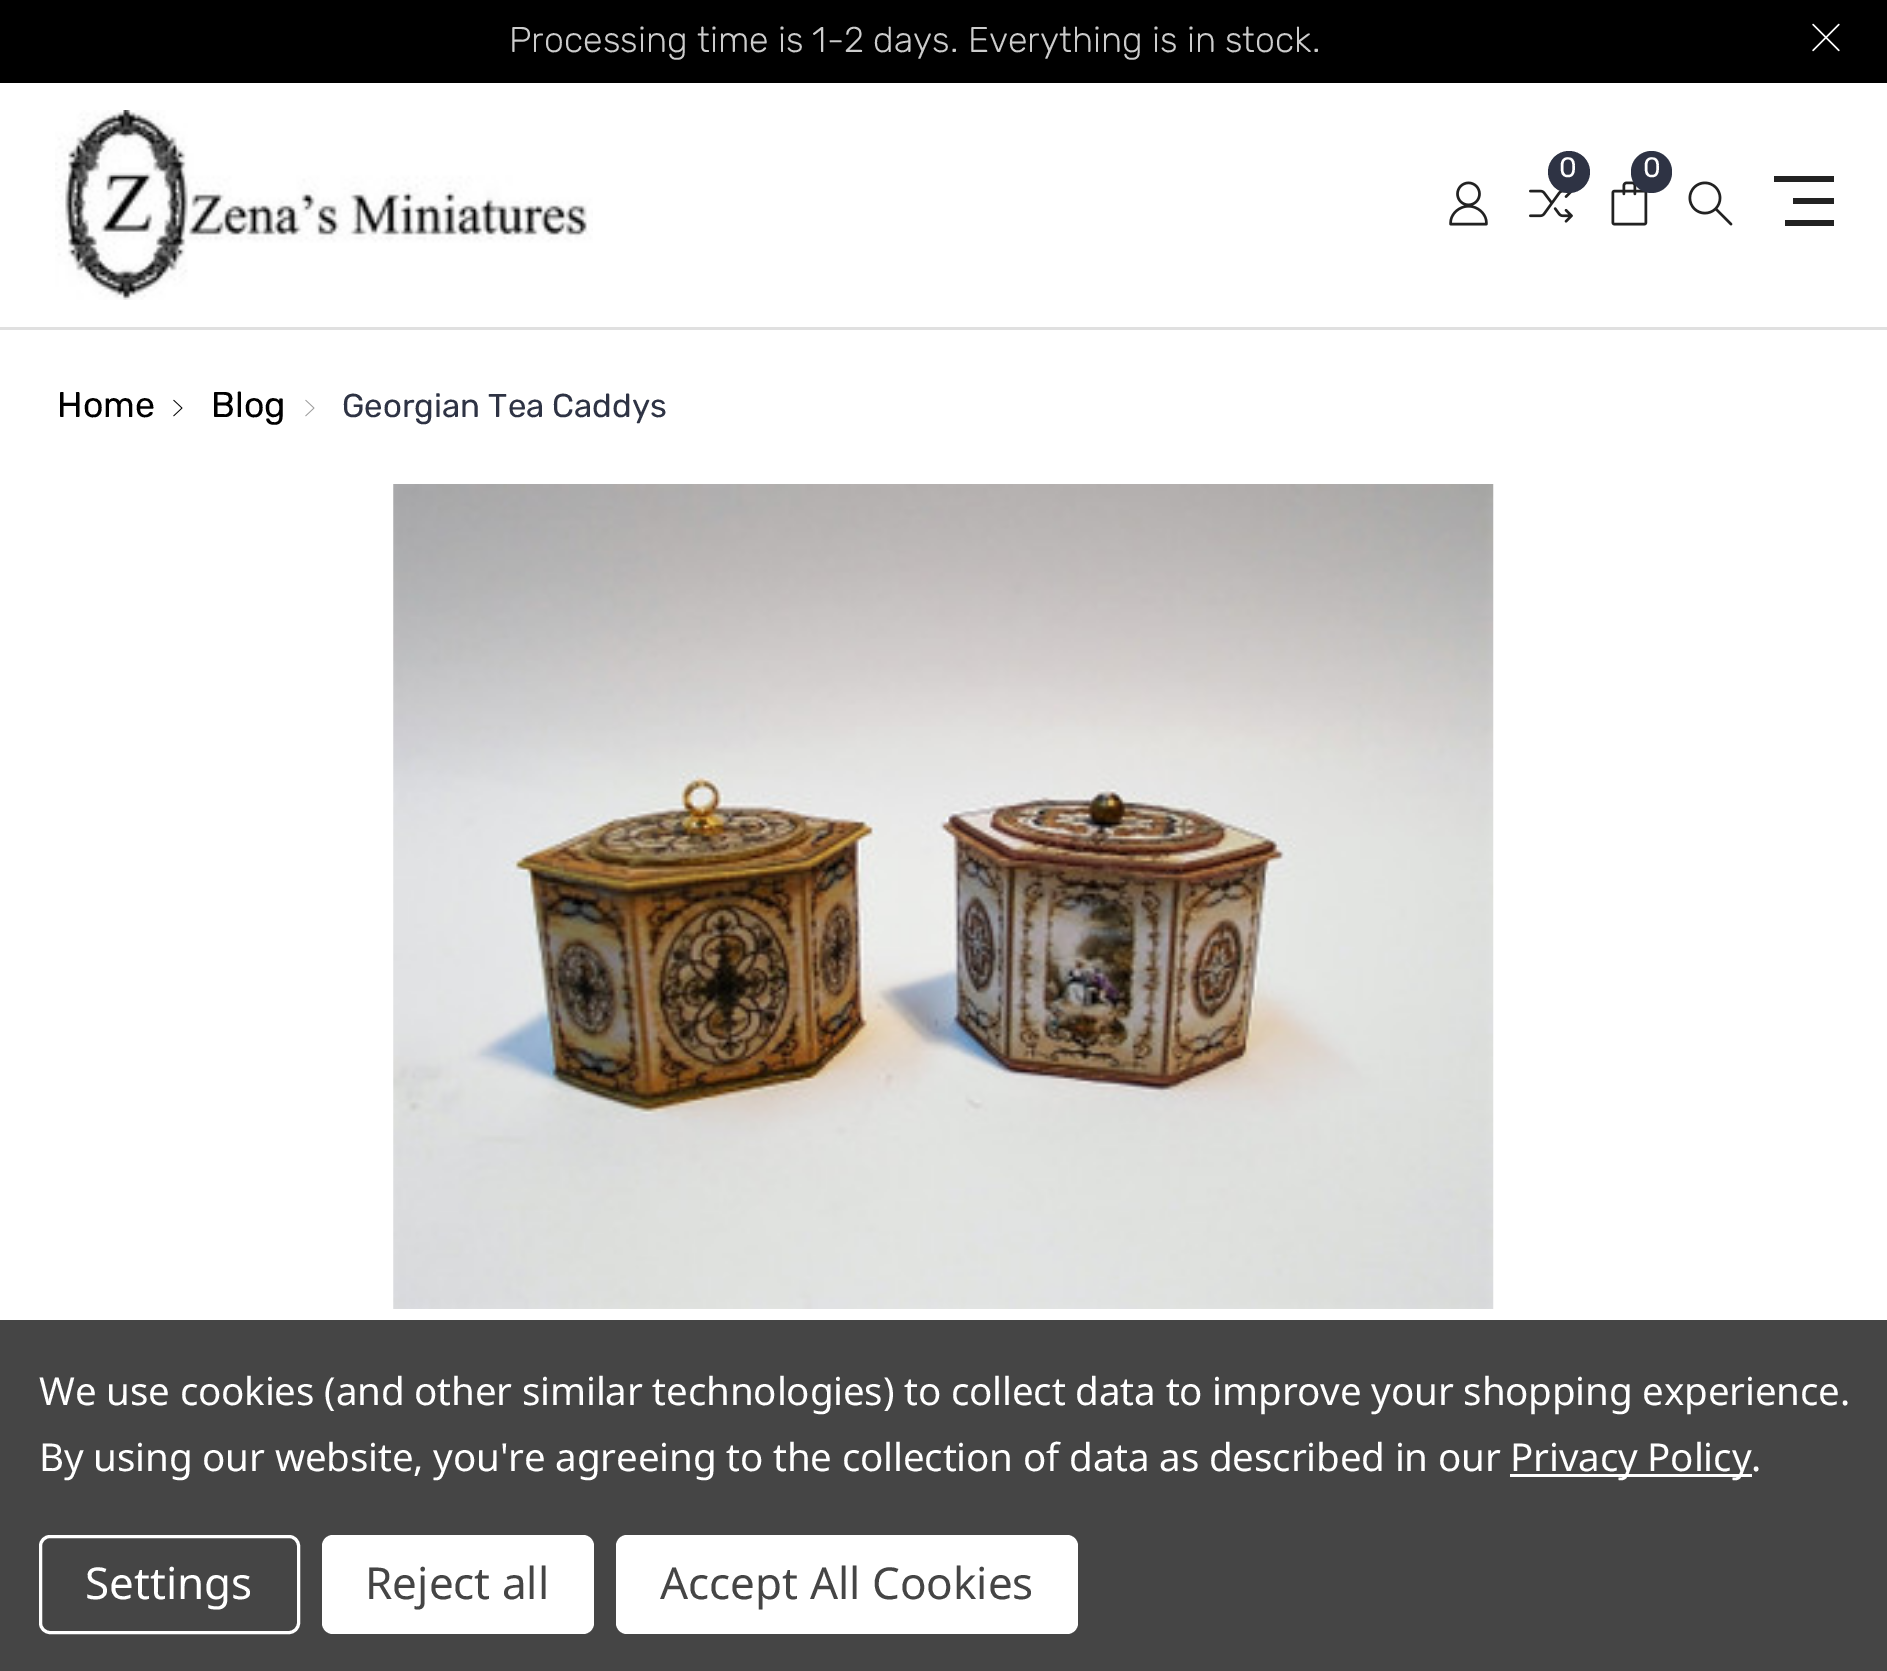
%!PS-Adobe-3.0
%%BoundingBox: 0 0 1887 1671
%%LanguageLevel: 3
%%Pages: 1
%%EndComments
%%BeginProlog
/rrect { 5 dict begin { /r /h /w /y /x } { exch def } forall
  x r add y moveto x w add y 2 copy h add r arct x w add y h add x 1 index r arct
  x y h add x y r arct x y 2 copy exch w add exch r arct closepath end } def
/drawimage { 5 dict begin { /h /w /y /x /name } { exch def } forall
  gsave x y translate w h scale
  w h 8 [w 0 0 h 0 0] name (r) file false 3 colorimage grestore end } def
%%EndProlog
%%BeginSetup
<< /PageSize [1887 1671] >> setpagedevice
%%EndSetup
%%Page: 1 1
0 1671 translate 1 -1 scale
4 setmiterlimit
1 setgray
0 0 1887 1671 rectfill
0.878 setgray
0 327 1887 3 rectfill
0 setgray
0 0 1887 83 rectfill
(images/1.raw) 1812 23 28 29 drawimage
(images/2.raw) 55 110 538 190 drawimage
(images/3.raw) 1529 189 44 34 drawimage
0.18 0.2 0.267 setrgbcolor
newpath 1569 172 21 0 360 arc closepath fill
(images/4.raw) 1611 181 37 45 drawimage
1631 151 41 42 20.5 rrect fill
(images/5.raw) 1449 181 39 45 drawimage
(images/6.raw) 1688 181 45 45 drawimage
0.133 setgray
1774 176 60 6 rectfill
1793 198 41 6 rectfill
1785 220 49 6 rectfill
(images/7.raw) 173 399 10 18 drawimage
(images/8.raw) 305 399 10 18 drawimage
(images/9.raw) 393 484 1101 825 drawimage
0.271 setgray
0 1320 1887 351 rectfill
1 setgray
1510 1474 242 3 rectfill
3 setlinewidth
40.5 1536.5 258 96 9.5 rrect stroke
322 1535 272 99 11 rrect fill
616 1535 462 99 11 rrect fill
/Rubik-Light [35.75 0 0 -35.75 0 0] selectfont
0.8 setgray
509 52 moveto (Processing time is 1-2 days. Everything is in stock.) show
/Rubik-Regular [28 0 0 -28 0 0] selectfont
1 setgray
1559 177 moveto (0) show
1643 177 moveto (0) show
/Rubik-Regular [35.75 0 0 -35.75 0 0] selectfont
0 setgray
57 417 moveto (Home) show
211 417 moveto (Blog) show
/Rubik-Regular [33 0 0 -33 0 0] selectfont
0.18 0.2 0.267 setrgbcolor
342 417 moveto (Georgian Tea Caddys) show
/NotoSans-Regular [38.5 0 0 -38.5 0 0] selectfont
1 setgray
39 1405 moveto -0.14 0 (We use cookies \(and other similar technologies\) to collect data to improve your shopping experience.) ashow
39 1471 moveto -0.14 0 (By using our website, you're agreeing to the collection of data as described in our) ashow
1510 1471 moveto -0.14 0 (Privacy Policy.) ashow
/NotoSans-Regular [44 0 0 -44 0 0] selectfont
85 1599 moveto (Settings) show
0.271 setgray
365 1599 moveto (Reject all) show
660 1599 moveto (Accept All Cookies) show
showpage
%%EOF
